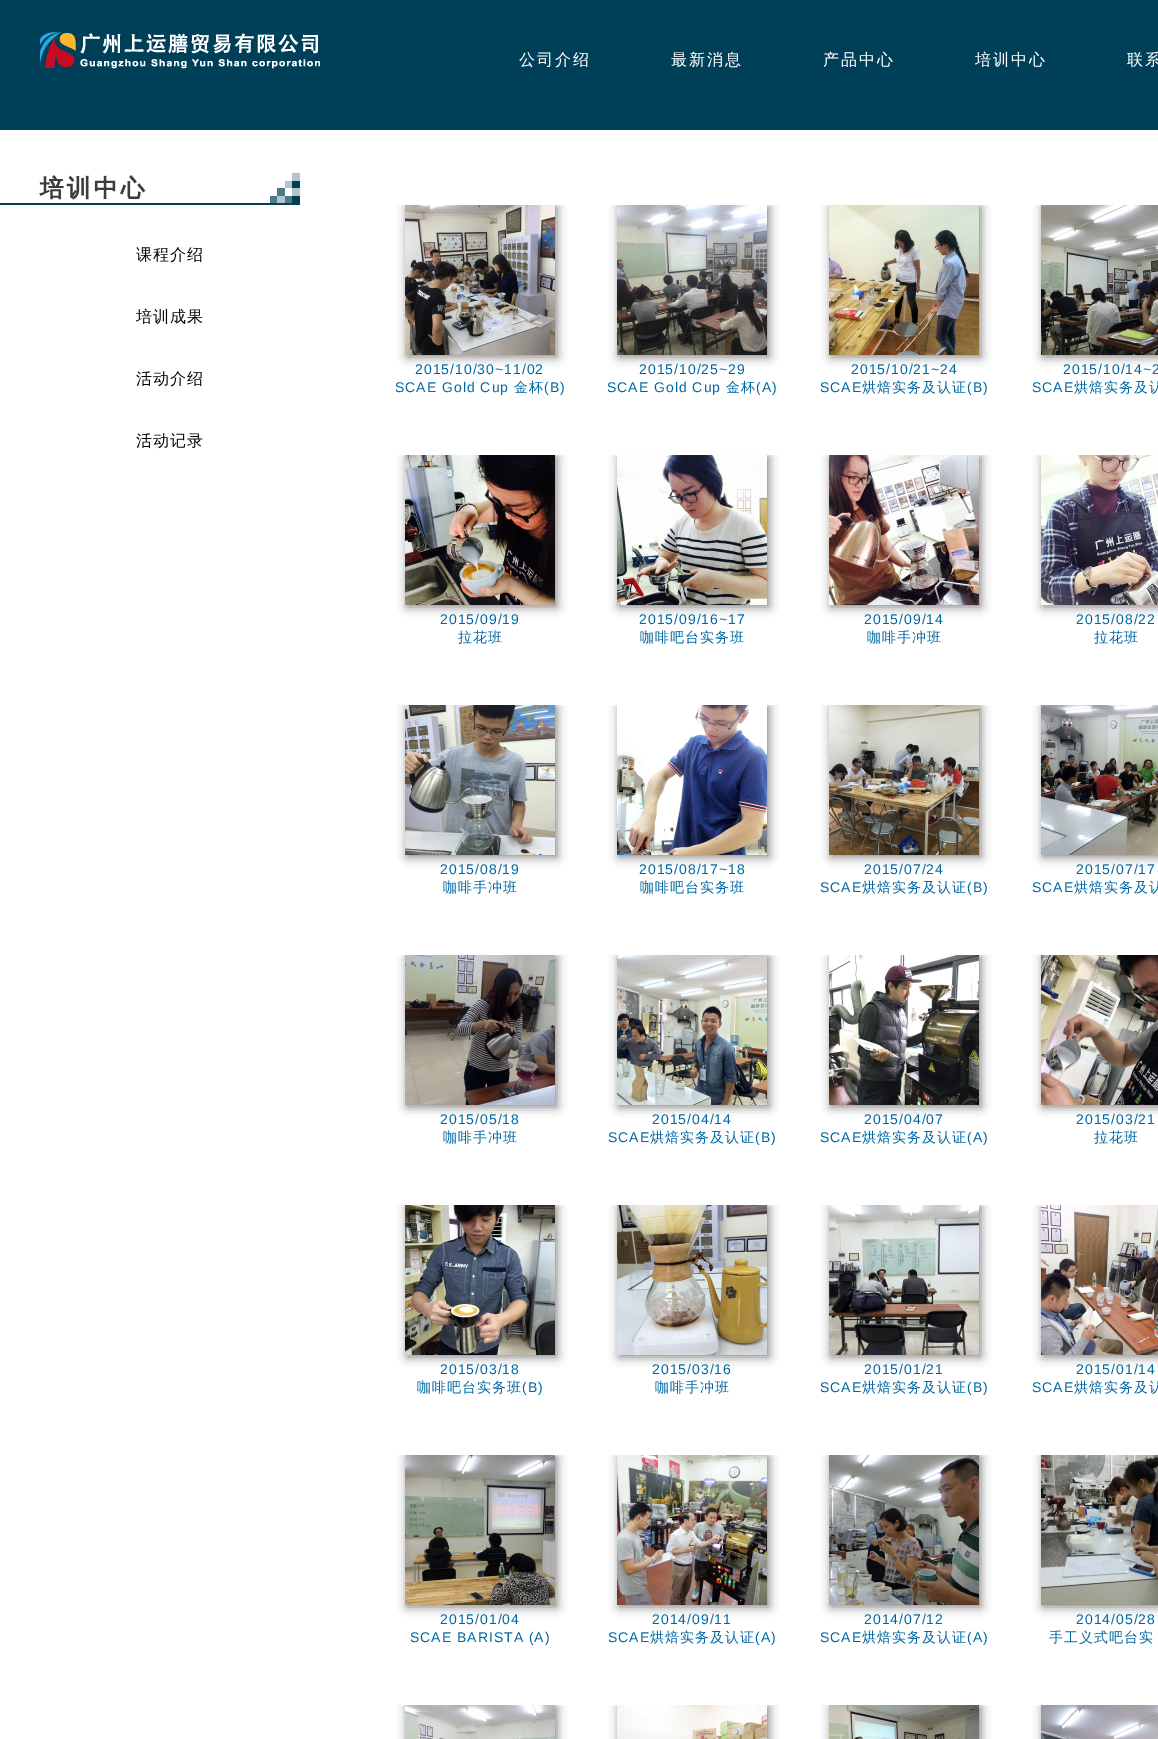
%!PS-Adobe-3.0
%%BoundingBox: 0 0 1158 1739
%%LanguageLevel: 3
%%Pages: 1
%%EndComments
%%BeginProlog
/setalpha { dup .setfillconstantalpha .setstrokeconstantalpha } def
/rrect { 5 dict begin { /r /h /w /y /x } { exch def } forall
  x r add y moveto x w add y 2 copy h add r arct x w add y h add x 1 index r arct
  x y h add x y r arct x y 2 copy exch w add exch r arct closepath end } def
/softshadow { 12 dict begin { /a /b /q /h /w /y /x } { exch def } forall gsave /was 0 def
  9 -2 -9 { dup b mul 4 div /e exch def 1 sub .425 mul 2.718 exch exp 1 add a .99 .min exch div /now exch def
    1 1 now sub 1 was sub div sub setalpha /was now def
    w h .min e 2 mul add 0 gt { x e sub y e sub w e 2 mul add h e 2 mul add
      q e add b .6 mul add w h .min 2 div e add .min 0 .max rrect fill } if } for grestore end } def
/drawimage { 5 dict begin { /h /w /y /x /name } { exch def } forall
  gsave x y translate w h scale
  w h 8 [w 0 0 h 0 0] name (r) file false 3 colorimage grestore end } def
%%EndProlog
%%BeginSetup
<< /PageSize [1158 1739] /PageUsesTransparency true >> setpagedevice
%%EndSetup
%%Page: 1 1
0 .pushpdf14devicefilter
0 1739 translate 1 -1 scale
4 setmiterlimit
0 0.247 0.345 setrgbcolor
0 0 1158 1739 rectfill
(images/1.raw) 40 32 1118 37 drawimage
1 setgray
0 130 1158 1609 rectfill
(images/2.raw) 0 173 300 276 drawimage
gsave
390 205 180 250 rectclip
0 setgray
407 207 150 150 0 5 0.5 softshadow
grestore
(images/3.raw) 405 205 150 150 drawimage
gsave
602 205 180 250 rectclip
0 setgray
619 207 150 150 0 5 0.5 softshadow
grestore
(images/4.raw) 617 205 150 150 drawimage
gsave
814 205 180 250 rectclip
0 setgray
831 207 150 150 0 5 0.5 softshadow
grestore
(images/5.raw) 829 205 150 150 drawimage
gsave
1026 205 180 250 rectclip
0 setgray
1043 207 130 150 0 5 0.5 softshadow
grestore
(images/6.raw) 1041 205 117 150 drawimage
gsave
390 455 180 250 rectclip
0 setgray
407 457 150 150 0 5 0.5 softshadow
grestore
(images/7.raw) 405 455 150 150 drawimage
gsave
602 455 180 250 rectclip
0 setgray
619 457 150 150 0 5 0.5 softshadow
grestore
(images/8.raw) 617 455 150 150 drawimage
gsave
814 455 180 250 rectclip
0 setgray
831 457 150 150 0 5 0.5 softshadow
grestore
(images/9.raw) 829 455 150 150 drawimage
gsave
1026 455 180 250 rectclip
0 setgray
1043 457 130 150 0 5 0.5 softshadow
grestore
(images/10.raw) 1041 455 117 150 drawimage
gsave
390 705 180 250 rectclip
0 setgray
407 707 150 150 0 5 0.5 softshadow
grestore
(images/11.raw) 405 705 150 150 drawimage
gsave
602 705 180 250 rectclip
0 setgray
619 707 150 150 0 5 0.5 softshadow
grestore
(images/12.raw) 617 705 150 150 drawimage
gsave
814 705 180 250 rectclip
0 setgray
831 707 150 150 0 5 0.5 softshadow
grestore
(images/13.raw) 829 705 150 150 drawimage
gsave
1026 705 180 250 rectclip
0 setgray
1043 707 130 150 0 5 0.5 softshadow
grestore
(images/14.raw) 1041 705 117 150 drawimage
gsave
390 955 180 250 rectclip
0 setgray
407 957 150 150 0 5 0.5 softshadow
grestore
(images/15.raw) 405 955 150 150 drawimage
gsave
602 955 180 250 rectclip
0 setgray
619 957 150 150 0 5 0.5 softshadow
grestore
(images/16.raw) 617 955 150 150 drawimage
gsave
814 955 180 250 rectclip
0 setgray
831 957 150 150 0 5 0.5 softshadow
grestore
(images/17.raw) 829 955 150 150 drawimage
gsave
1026 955 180 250 rectclip
0 setgray
1043 957 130 150 0 5 0.5 softshadow
grestore
(images/18.raw) 1041 955 117 150 drawimage
gsave
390 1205 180 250 rectclip
0 setgray
407 1207 150 150 0 5 0.5 softshadow
grestore
(images/19.raw) 405 1205 150 150 drawimage
gsave
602 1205 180 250 rectclip
0 setgray
619 1207 150 150 0 5 0.5 softshadow
grestore
(images/20.raw) 617 1205 150 150 drawimage
gsave
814 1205 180 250 rectclip
0 setgray
831 1207 150 150 0 5 0.5 softshadow
grestore
(images/21.raw) 829 1205 150 150 drawimage
gsave
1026 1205 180 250 rectclip
0 setgray
1043 1207 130 150 0 5 0.5 softshadow
grestore
(images/22.raw) 1041 1205 117 150 drawimage
gsave
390 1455 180 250 rectclip
0 setgray
407 1457 150 150 0 5 0.5 softshadow
grestore
(images/23.raw) 405 1455 150 150 drawimage
gsave
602 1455 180 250 rectclip
0 setgray
619 1457 150 150 0 5 0.5 softshadow
grestore
(images/24.raw) 617 1455 150 150 drawimage
gsave
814 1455 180 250 rectclip
0 setgray
831 1457 150 150 0 5 0.5 softshadow
grestore
(images/25.raw) 829 1455 150 150 drawimage
gsave
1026 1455 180 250 rectclip
0 setgray
1043 1457 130 150 0 5 0.5 softshadow
grestore
(images/26.raw) 1041 1455 117 150 drawimage
gsave
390 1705 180 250 rectclip
0 setgray
407 1707 150 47 0 5 0.5 softshadow
grestore
(images/27.raw) 405 1705 150 34 drawimage
gsave
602 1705 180 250 rectclip
0 setgray
619 1707 150 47 0 5 0.5 softshadow
grestore
(images/28.raw) 617 1705 150 34 drawimage
gsave
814 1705 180 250 rectclip
0 setgray
831 1707 150 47 0 5 0.5 softshadow
grestore
(images/29.raw) 829 1705 150 34 drawimage
gsave
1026 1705 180 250 rectclip
0 setgray
1043 1707 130 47 0 5 0.5 softshadow
grestore
(images/30.raw) 1041 1705 117 34 drawimage
/LiberationSans-Regular [14 0 0 -14 0 0] selectfont
0 0.404 0.643 setrgbcolor
415 374 moveto 1 0 (2015/10/30~11/02) ashow
395 392 moveto 1 0 (SCAE Gold Cup) ashow
/WenQuanYiZenHei-Medium [14 0 0 -14 0 0] selectfont
514 392 moveto 1 0 (金杯) ashow
/LiberationSans-Regular [14 0 0 -14 0 0] selectfont
544 392 moveto 1 0 (\(B\)) ashow
639 374 moveto 1 0 (2015/10/25~29) ashow
607 392 moveto 1 0 (SCAE Gold Cup) ashow
/WenQuanYiZenHei-Medium [14 0 0 -14 0 0] selectfont
726 392 moveto 1 0 (金杯) ashow
/LiberationSans-Regular [14 0 0 -14 0 0] selectfont
756 392 moveto 1 0 (\(A\)) ashow
851 374 moveto 1 0 (2015/10/21~24) ashow
820 392 moveto 1 0 (SCAE) ashow
/WenQuanYiZenHei-Medium [14 0 0 -14 0 0] selectfont
862 392 moveto 1 0 (烘焙实务及认证) ashow
/LiberationSans-Regular [14 0 0 -14 0 0] selectfont
967 392 moveto 1 0 (\(B\)) ashow
1063 374 moveto 1 0 (2015/10/14~2) ashow
1032 392 moveto 1 0 (SCAE) ashow
/WenQuanYiZenHei-Medium [14 0 0 -14 0 0] selectfont
1074 392 moveto 1 0 (烘焙实务及认) ashow
/LiberationSans-Regular [14 0 0 -14 0 0] selectfont
440 624 moveto 1 0 (2015/09/19) ashow
/WenQuanYiZenHei-Medium [14 0 0 -14 0 0] selectfont
458 642 moveto 1 0 (拉花班) ashow
/LiberationSans-Regular [14 0 0 -14 0 0] selectfont
639 624 moveto 1 0 (2015/09/16~17) ashow
/WenQuanYiZenHei-Medium [14 0 0 -14 0 0] selectfont
640 642 moveto 1 0 (咖啡吧台实务班) ashow
/LiberationSans-Regular [14 0 0 -14 0 0] selectfont
864 624 moveto 1 0 (2015/09/14) ashow
/WenQuanYiZenHei-Medium [14 0 0 -14 0 0] selectfont
867 642 moveto 1 0 (咖啡手冲班) ashow
/LiberationSans-Regular [14 0 0 -14 0 0] selectfont
1076 624 moveto 1 0 (2015/08/22) ashow
/WenQuanYiZenHei-Medium [14 0 0 -14 0 0] selectfont
1094 642 moveto 1 0 (拉花班) ashow
/LiberationSans-Regular [14 0 0 -14 0 0] selectfont
440 874 moveto 1 0 (2015/08/19) ashow
/WenQuanYiZenHei-Medium [14 0 0 -14 0 0] selectfont
443 892 moveto 1 0 (咖啡手冲班) ashow
/LiberationSans-Regular [14 0 0 -14 0 0] selectfont
639 874 moveto 1 0 (2015/08/17~18) ashow
/WenQuanYiZenHei-Medium [14 0 0 -14 0 0] selectfont
640 892 moveto 1 0 (咖啡吧台实务班) ashow
/LiberationSans-Regular [14 0 0 -14 0 0] selectfont
864 874 moveto 1 0 (2015/07/24) ashow
820 892 moveto 1 0 (SCAE) ashow
/WenQuanYiZenHei-Medium [14 0 0 -14 0 0] selectfont
862 892 moveto 1 0 (烘焙实务及认证) ashow
/LiberationSans-Regular [14 0 0 -14 0 0] selectfont
967 892 moveto 1 0 (\(B\)) ashow
1076 874 moveto 1 0 (2015/07/17) ashow
1032 892 moveto 1 0 (SCAE) ashow
/WenQuanYiZenHei-Medium [14 0 0 -14 0 0] selectfont
1074 892 moveto 1 0 (烘焙实务及认) ashow
/LiberationSans-Regular [14 0 0 -14 0 0] selectfont
440 1124 moveto 1 0 (2015/05/18) ashow
/WenQuanYiZenHei-Medium [14 0 0 -14 0 0] selectfont
443 1142 moveto 1 0 (咖啡手冲班) ashow
/LiberationSans-Regular [14 0 0 -14 0 0] selectfont
652 1124 moveto 1 0 (2015/04/14) ashow
608 1142 moveto 1 0 (SCAE) ashow
/WenQuanYiZenHei-Medium [14 0 0 -14 0 0] selectfont
650 1142 moveto 1 0 (烘焙实务及认证) ashow
/LiberationSans-Regular [14 0 0 -14 0 0] selectfont
755 1142 moveto 1 0 (\(B\)) ashow
864 1124 moveto 1 0 (2015/04/07) ashow
820 1142 moveto 1 0 (SCAE) ashow
/WenQuanYiZenHei-Medium [14 0 0 -14 0 0] selectfont
862 1142 moveto 1 0 (烘焙实务及认证) ashow
/LiberationSans-Regular [14 0 0 -14 0 0] selectfont
967 1142 moveto 1 0 (\(A\)) ashow
1076 1124 moveto 1 0 (2015/03/21) ashow
/WenQuanYiZenHei-Medium [14 0 0 -14 0 0] selectfont
1094 1142 moveto 1 0 (拉花班) ashow
/LiberationSans-Regular [14 0 0 -14 0 0] selectfont
440 1374 moveto 1 0 (2015/03/18) ashow
/WenQuanYiZenHei-Medium [14 0 0 -14 0 0] selectfont
417 1392 moveto 1 0 (咖啡吧台实务班) ashow
/LiberationSans-Regular [14 0 0 -14 0 0] selectfont
522 1392 moveto 1 0 (\(B\)) ashow
652 1374 moveto 1 0 (2015/03/16) ashow
/WenQuanYiZenHei-Medium [14 0 0 -14 0 0] selectfont
655 1392 moveto 1 0 (咖啡手冲班) ashow
/LiberationSans-Regular [14 0 0 -14 0 0] selectfont
864 1374 moveto 1 0 (2015/01/21) ashow
820 1392 moveto 1 0 (SCAE) ashow
/WenQuanYiZenHei-Medium [14 0 0 -14 0 0] selectfont
862 1392 moveto 1 0 (烘焙实务及认证) ashow
/LiberationSans-Regular [14 0 0 -14 0 0] selectfont
967 1392 moveto 1 0 (\(B\)) ashow
1076 1374 moveto 1 0 (2015/01/14) ashow
1032 1392 moveto 1 0 (SCAE) ashow
/WenQuanYiZenHei-Medium [14 0 0 -14 0 0] selectfont
1074 1392 moveto 1 0 (烘焙实务及认) ashow
/LiberationSans-Regular [14 0 0 -14 0 0] selectfont
440 1624 moveto 1 0 (2015/01/04) ashow
410 1642 moveto 1 0 (SCAE BARISTA \(A\)) ashow
652 1624 moveto 1 0 (2014/09/11) ashow
608 1642 moveto 1 0 (SCAE) ashow
/WenQuanYiZenHei-Medium [14 0 0 -14 0 0] selectfont
650 1642 moveto 1 0 (烘焙实务及认证) ashow
/LiberationSans-Regular [14 0 0 -14 0 0] selectfont
755 1642 moveto 1 0 (\(A\)) ashow
864 1624 moveto 1 0 (2014/07/12) ashow
820 1642 moveto 1 0 (SCAE) ashow
/WenQuanYiZenHei-Medium [14 0 0 -14 0 0] selectfont
862 1642 moveto 1 0 (烘焙实务及认证) ashow
/LiberationSans-Regular [14 0 0 -14 0 0] selectfont
967 1642 moveto 1 0 (\(A\)) ashow
1076 1624 moveto 1 0 (2014/05/28) ashow
/WenQuanYiZenHei-Medium [14 0 0 -14 0 0] selectfont
1049 1642 moveto 1 0 (手工义式吧台实) ashow
.poppdf14devicefilter showpage
%%EOF
